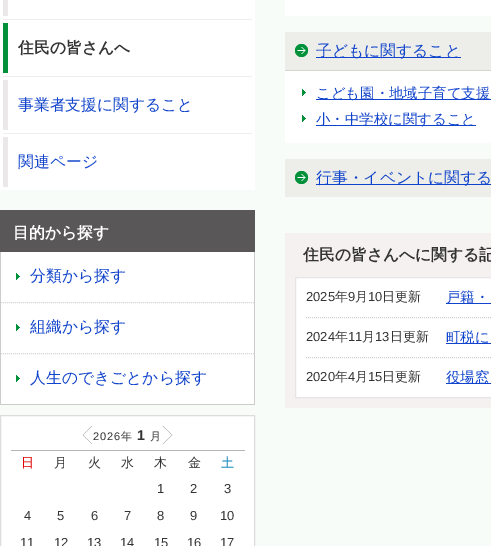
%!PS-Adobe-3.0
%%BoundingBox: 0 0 491 546
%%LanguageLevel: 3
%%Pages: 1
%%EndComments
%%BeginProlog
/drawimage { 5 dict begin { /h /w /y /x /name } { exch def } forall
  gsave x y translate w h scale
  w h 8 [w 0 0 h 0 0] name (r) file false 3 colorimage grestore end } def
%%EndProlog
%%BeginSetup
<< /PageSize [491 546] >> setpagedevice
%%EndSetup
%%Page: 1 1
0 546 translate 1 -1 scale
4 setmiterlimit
0.973 0.988 0.973 setrgbcolor
0 0 491 546 rectfill
1 setgray
0 0 255 190 rectfill
0.918 0.91 0.91 setrgbcolor
3 0 5 16 rectfill
0.933 setgray
3 19 249 1 rectfill
0.008 0.565 0.227 setrgbcolor
3 23 5 50 rectfill
0.933 setgray
3 76 249 1 rectfill
0.918 0.91 0.91 setrgbcolor
3 80 5 50 rectfill
0.933 setgray
3 133 249 1 rectfill
0.918 0.91 0.91 setrgbcolor
3 137 5 50 rectfill
0.349 0.341 0.341 setrgbcolor
0 210 255 42 rectfill
1 setgray
1 252 253 152 rectfill
0.8 setgray
254 252 1 153 rectfill
0 404 255 1 rectfill
0 252 1 153 rectfill
(images/1.raw) 16 273 4 7 drawimage
0.851 setgray
[1 1] 0 setdash
newpath 1 302.5 moveto 254 302.5 lineto stroke
(images/1.raw) 16 324 4 7 drawimage
newpath 1 353.5 moveto 254 353.5 lineto stroke
(images/1.raw) 16 375 4 7 drawimage
1 setgray
newpath 0.5 415.5 moveto 254.5 415.5 lineto 254.5 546.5 lineto 0.5 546.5 lineto closepath gsave fill grestore
0.867 setgray
[] 0 setdash
stroke
(images/2.raw) 82 426 11 18 drawimage
(images/3.raw) 83 426 9 18 drawimage
(images/4.raw) 162 426 11 18 drawimage
(images/5.raw) 163 426 9 18 drawimage
0.718 0.714 0.714 setrgbcolor
11 450 234 1 rectfill
1 setgray
285 0 206 16 rectfill
285 71 206 72 rectfill
0.929 0.933 0.914 setrgbcolor
285 32 206 38 rectfill
0.839 0.835 0.816 setrgbcolor
285 70 206 1 rectfill
(images/6.raw) 295 44 14 13 drawimage
0.067 0.267 0.8 setrgbcolor
316 57 145 1 rectfill
(images/1.raw) 302 89 4 7 drawimage
316 99 175 1 rectfill
(images/1.raw) 302 115 4 7 drawimage
316 125 160 1 rectfill
0.929 0.933 0.914 setrgbcolor
285 159 206 38 rectfill
(images/6.raw) 295 171 14 13 drawimage
0.067 0.267 0.8 setrgbcolor
316 184 175 1 rectfill
0.961 0.945 0.941 setrgbcolor
285 233 206 175 rectfill
1 setgray
newpath 295.5 277.5 moveto 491.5 277.5 lineto 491.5 397.5 lineto 295.5 397.5 lineto closepath gsave fill grestore
0.898 setgray
stroke
0.067 0.267 0.8 setrgbcolor
446 303 45 1 rectfill
0.8 setgray
[1 1] 0 setdash
newpath 306 317.5 moveto 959 317.5 lineto stroke
0.067 0.267 0.8 setrgbcolor
446 343 45 1 rectfill
0.8 setgray
newpath 306 357.5 moveto 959 357.5 lineto stroke
0.067 0.267 0.8 setrgbcolor
446 383 45 1 rectfill
/WenQuanYiZenHei-Bold [15.8 0 0 -15.8 0 0] selectfont
0.2 setgray
18 53 moveto (住民の皆さんへ) show
/WenQuanYiZenHei-Medium [15.8 0 0 -15.8 0 0] selectfont
0.067 0.267 0.8 setrgbcolor
18 110 moveto (事業者支援に関すること) show
18 167 moveto (関連ページ) show
/WenQuanYiZenHei-Bold [15.8 0 0 -15.8 0 0] selectfont
1 setgray
13 238 moveto (目的から探す) show
/WenQuanYiZenHei-Medium [15.8 0 0 -15.8 0 0] selectfont
0.067 0.267 0.8 setrgbcolor
30 281 moveto (分類から探す) show
30 332 moveto (組織から探す) show
30 383 moveto (人生のできごとから探す) show
/LiberationSans-Regular [11 0 0 -11 0 0] selectfont
0.2 setgray
93 440 moveto 1 0 (2026) ashow
/WenQuanYiZenHei-Medium [11 0 0 -11 0 0] selectfont
121 440 moveto 1 0 (年) ashow
/LiberationSans-Bold [14 0 0 -14 0 0] selectfont
137 440 moveto 5 0 (1) ashow
/WenQuanYiZenHei-Medium [11 0 0 -11 0 0] selectfont
150 440 moveto 1 0 (月) ashow
/WenQuanYiZenHei-Medium [13 0 0 -13 0 0] selectfont
0.867 0 0 setrgbcolor
21 467 moveto (日) show
0.2 setgray
54 467 moveto (月) show
88 467 moveto (火) show
121 467 moveto (水) show
154 467 moveto (木) show
188 467 moveto (金) show
0.082 0.529 0.741 setrgbcolor
221 467 moveto (土) show
/LiberationSans-Regular [13 0 0 -13 0 0] selectfont
0.2 setgray
157 493 moveto (1) show
190 493 moveto (2) show
224 493 moveto (3) show
24 520 moveto (4) show
57 520 moveto (5) show
91 520 moveto (6) show
124 520 moveto (7) show
157 520 moveto (8) show
190 520 moveto (9) show
220 520 moveto (10) show
20 547 moveto (11) show
54 547 moveto (12) show
87 547 moveto (13) show
120 547 moveto (14) show
154 547 moveto (15) show
187 547 moveto (16) show
220 547 moveto (17) show
/WenQuanYiZenHei-Medium [15.8 0 0 -15.8 0 0] selectfont
0.067 0.267 0.8 setrgbcolor
316 56 moveto (子どもに関すること) show
/WenQuanYiZenHei-Medium [14.4 0 0 -14.4 0 0] selectfont
316 98 moveto (こども園・地域子育て支援) show
316 124 moveto (小・中学校に関すること) show
/WenQuanYiZenHei-Medium [15.8 0 0 -15.8 0 0] selectfont
316 183 moveto (行事・イベントに関する) show
/WenQuanYiZenHei-Bold [15.8 0 0 -15.8 0 0] selectfont
0.2 setgray
303 260 moveto (住民の皆さんへに関する記) show
/LiberationSans-Regular [13 0 0 -13 0 0] selectfont
306 301 moveto (2025) show
/WenQuanYiZenHei-Medium [13 0 0 -13 0 0] selectfont
335 301 moveto (年) show
/LiberationSans-Regular [13 0 0 -13 0 0] selectfont
348 301 moveto (9) show
/WenQuanYiZenHei-Medium [13 0 0 -13 0 0] selectfont
355 301 moveto (月) show
/LiberationSans-Regular [13 0 0 -13 0 0] selectfont
368 301 moveto (10) show
/WenQuanYiZenHei-Medium [13 0 0 -13 0 0] selectfont
382 301 moveto (日更新) show
/WenQuanYiZenHei-Medium [14.4 0 0 -14.4 0 0] selectfont
0.067 0.267 0.8 setrgbcolor
446 302 moveto (戸籍・) show
/LiberationSans-Regular [13 0 0 -13 0 0] selectfont
0.2 setgray
306 341 moveto (2024) show
/WenQuanYiZenHei-Medium [13 0 0 -13 0 0] selectfont
335 341 moveto (年) show
/LiberationSans-Regular [13 0 0 -13 0 0] selectfont
348 341 moveto (11) show
/WenQuanYiZenHei-Medium [13 0 0 -13 0 0] selectfont
362 341 moveto (月) show
/LiberationSans-Regular [13 0 0 -13 0 0] selectfont
375 341 moveto (13) show
/WenQuanYiZenHei-Medium [13 0 0 -13 0 0] selectfont
390 341 moveto (日更新) show
/WenQuanYiZenHei-Medium [14.4 0 0 -14.4 0 0] selectfont
0.067 0.267 0.8 setrgbcolor
446 342 moveto (町税に) show
/LiberationSans-Regular [13 0 0 -13 0 0] selectfont
0.2 setgray
306 381 moveto (2020) show
/WenQuanYiZenHei-Medium [13 0 0 -13 0 0] selectfont
335 381 moveto (年) show
/LiberationSans-Regular [13 0 0 -13 0 0] selectfont
348 381 moveto (4) show
/WenQuanYiZenHei-Medium [13 0 0 -13 0 0] selectfont
355 381 moveto (月) show
/LiberationSans-Regular [13 0 0 -13 0 0] selectfont
368 381 moveto (15) show
/WenQuanYiZenHei-Medium [13 0 0 -13 0 0] selectfont
382 381 moveto (日更新) show
/WenQuanYiZenHei-Medium [14.4 0 0 -14.4 0 0] selectfont
0.067 0.267 0.8 setrgbcolor
446 382 moveto (役場窓) show
showpage
%%EOF
